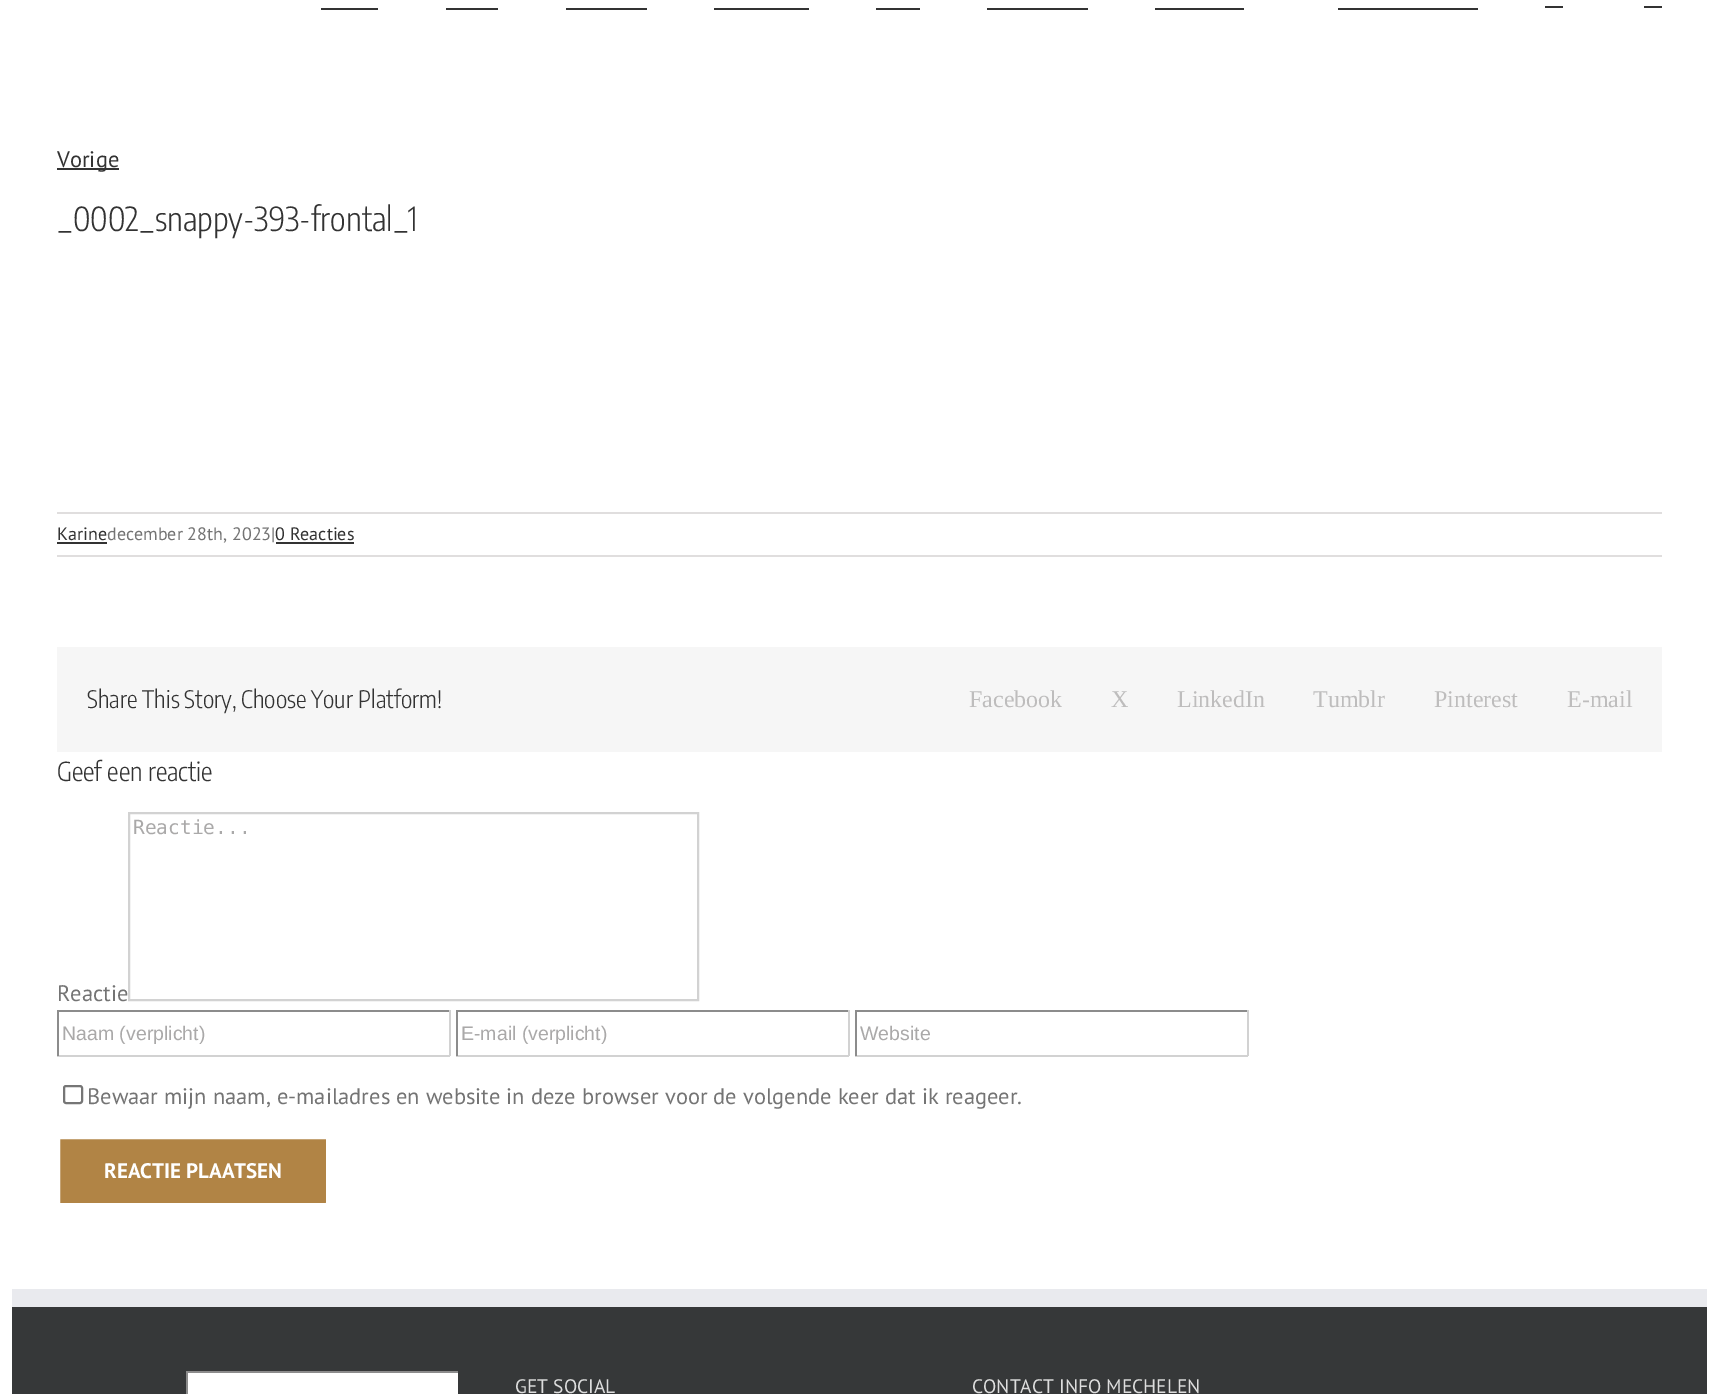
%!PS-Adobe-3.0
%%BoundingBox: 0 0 1719 1394
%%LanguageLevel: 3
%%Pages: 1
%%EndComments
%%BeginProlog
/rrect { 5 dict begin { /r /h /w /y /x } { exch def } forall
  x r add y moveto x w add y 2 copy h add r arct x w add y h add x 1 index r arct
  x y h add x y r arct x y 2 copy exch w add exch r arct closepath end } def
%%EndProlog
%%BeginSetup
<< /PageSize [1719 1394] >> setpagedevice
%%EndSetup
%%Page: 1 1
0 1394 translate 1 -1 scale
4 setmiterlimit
1 setgray
0 0 1719 1394 rectfill
0.2 setgray
1545 6 18 2 rectfill
1644 6 18 2 rectfill
321 8 57 2 rectfill
446 8 52 2 rectfill
566 8 81 2 rectfill
714 8 95 2 rectfill
876 8 44 2 rectfill
987 8 101 2 rectfill
1155 8 89 2 rectfill
1338 8 140 2 rectfill
57 168 62 2 rectfill
0.878 0.871 0.871 setrgbcolor
57 512 1605 2 rectfill
57 555 1605 2 rectfill
0.2 setgray
57 542 50 2 rectfill
276 542 78 2 rectfill
0.965 setgray
57 647 1605 105 rectfill
0.824 setgray
2 setlinewidth
129 813 569 187 rectstroke
0.549 setgray
57 1010 393 2 rectfill
0.824 setgray
449 1010 2 46 rectfill
57 1055 393 2 rectfill
0.549 setgray
57 1010 2 46 rectfill
456 1010 393 2 rectfill
0.824 setgray
848 1010 2 46 rectfill
456 1055 393 2 rectfill
0.549 setgray
456 1010 2 46 rectfill
855 1010 393 2 rectfill
0.824 setgray
1247 1010 2 46 rectfill
855 1055 393 2 rectfill
0.549 setgray
855 1010 2 46 rectfill
0.463 setgray
64 1086 18 17 2 rrect stroke
0.694 0.518 0.271 setrgbcolor
58.5 1137.5 269 67 1.5 rrect gsave fill grestore
1 setgray
3 setlinewidth
stroke
0.212 0.22 0.224 setrgbcolor
12 1307 1695 87 rectfill
0.914 0.918 0.933 setrgbcolor
12 1289 1695 18 rectfill
1 setgray
188 1373 270 21 rectfill
0.549 setgray
186 1371 272 2 rectfill
186 1371 2 23 rectfill
/PTSans-Regular [22.5 0 0 -22.5 0 0] selectfont
0.2 setgray
57 167 moveto (Vorige) show
/EncodeSansCondensed-Light [33 0 0 -33 0 0] selectfont
57 231 moveto (_0002_snappy-393-frontal_1) show
/PTSans-Regular [18 0 0 -18 0 0] selectfont
57 540 moveto (Karine) show
0.455 setgray
107 540 moveto (december 28th, 2023|) show
0.2 setgray
275 540 moveto (0 Reacties) show
/EncodeSansCondensed-Light [24 0 0 -24 0 0] selectfont
87 708 moveto (Share This Story, Choose Your Platform!) show
/LiberationSerif-Regular [24 0 0 -24 0 0] selectfont
0.745 0.741 0.741 setrgbcolor
969 707 moveto (Facebook) show
1111 707 moveto (X) show
1177 707 moveto (LinkedIn) show
1313 707 moveto (Tumblr) show
1434 707 moveto (Pinterest) show
1567 707 moveto (E-mail) show
/EncodeSansCondensed-Light [26 0 0 -26 0 0] selectfont
0.2 setgray
57 781 moveto (Geef een reactie) show
/DejaVuSansMono-Regular [19.5 0 0 -19.5 0 0] selectfont
0.667 0.663 0.663 setrgbcolor
133 834 moveto (Reactie...) show
/PTSans-Regular [22.5 0 0 -22.5 0 0] selectfont
0.455 setgray
57 1001 moveto (Reactie) show
/LiberationSans-Regular [19.5 0 0 -19.5 0 0] selectfont
0.667 0.663 0.663 setrgbcolor
62 1040 moveto (Naam \(verplicht\)) show
461 1040 moveto (E-mail \(verplicht\)) show
860 1040 moveto (Website) show
/PTSans-Regular [22.5 0 0 -22.5 0 0] selectfont
0.455 setgray
87 1104 moveto (Bewaar mijn naam, e-mailadres en website in deze browser voor de volgende keer dat ik reageer.) show
/PTSans-Bold [21 0 0 -21 0 0] selectfont
1 setgray
104 1178 moveto (REACTIE PLAATSEN) show
/PTSans-Regular [19.5 0 0 -19.5 0 0] selectfont
0.867 setgray
515 1393 moveto (GET SOCIAL) show
972 1393 moveto (CONTACT INFO MECHELEN) show
showpage
%%EOF
